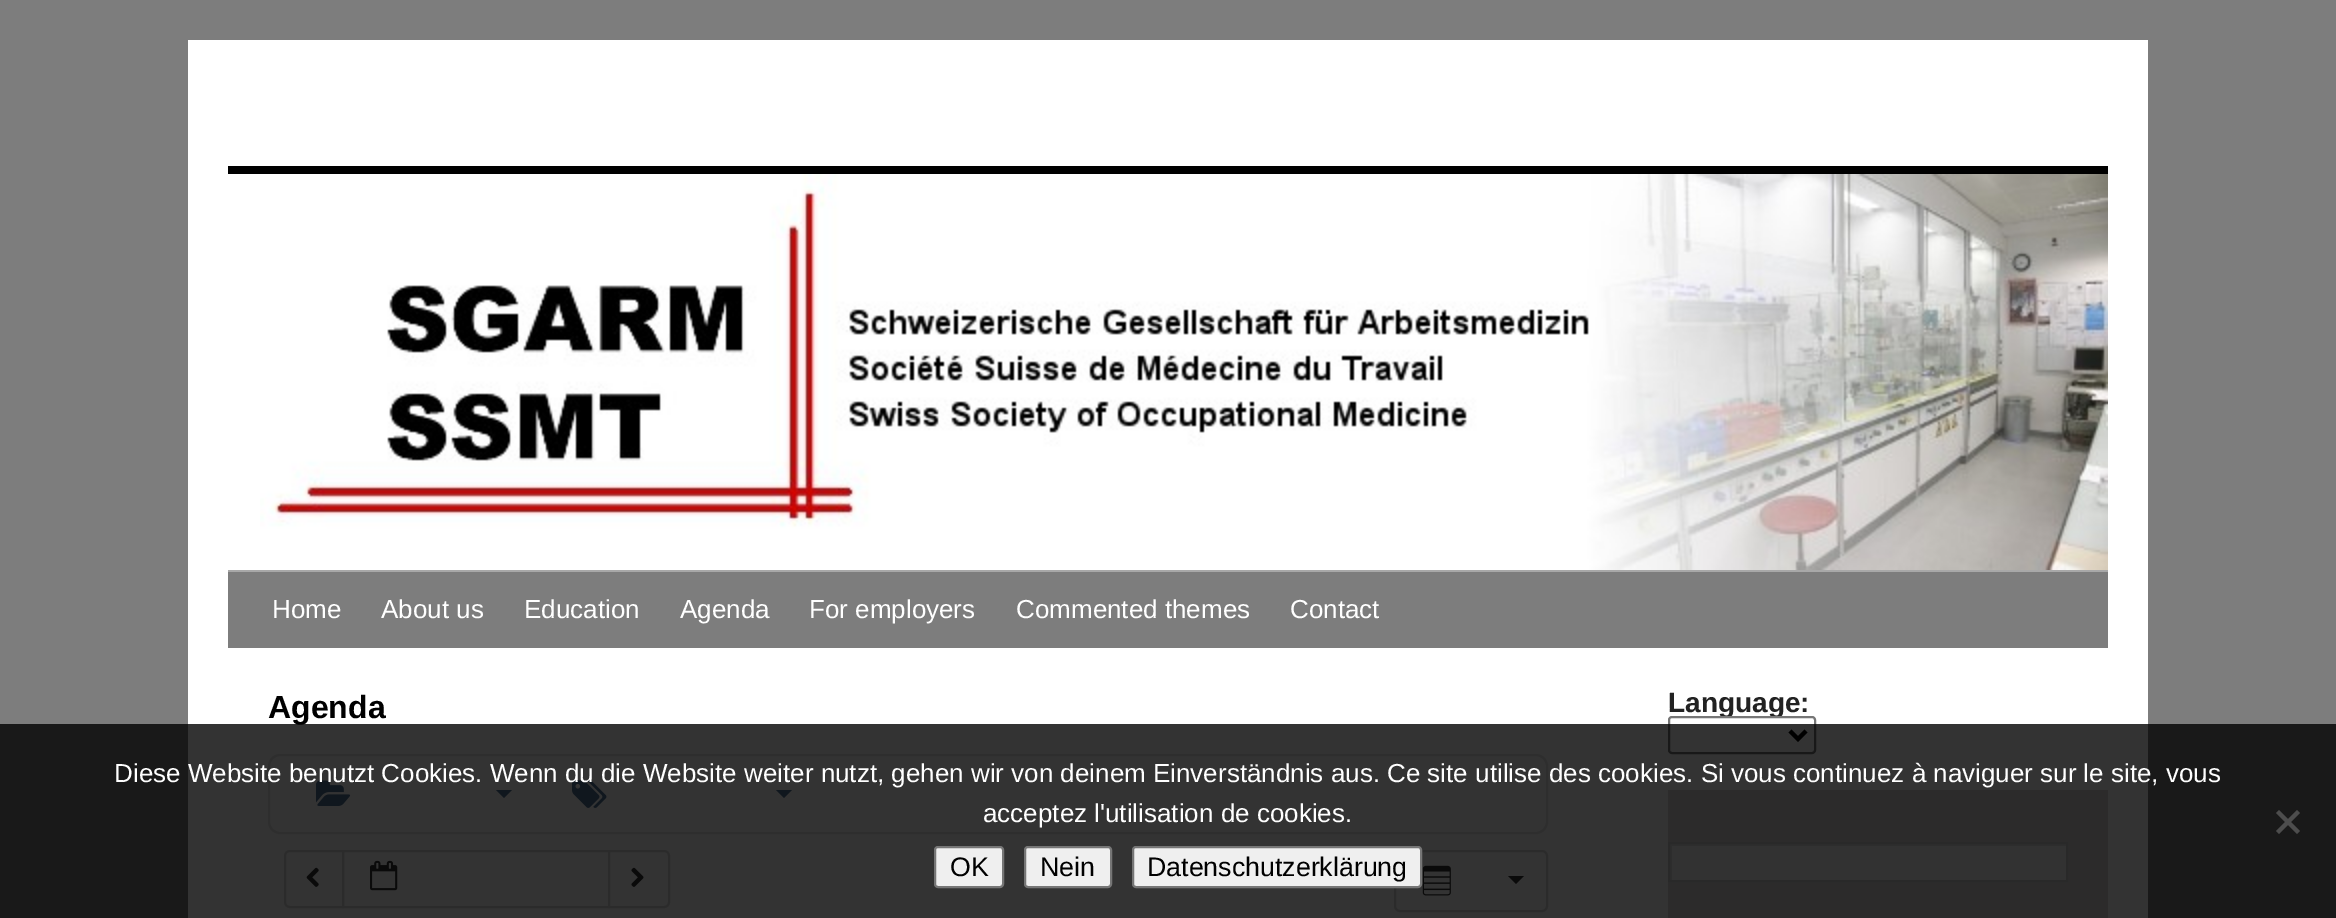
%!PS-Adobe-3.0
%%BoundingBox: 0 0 2336 918
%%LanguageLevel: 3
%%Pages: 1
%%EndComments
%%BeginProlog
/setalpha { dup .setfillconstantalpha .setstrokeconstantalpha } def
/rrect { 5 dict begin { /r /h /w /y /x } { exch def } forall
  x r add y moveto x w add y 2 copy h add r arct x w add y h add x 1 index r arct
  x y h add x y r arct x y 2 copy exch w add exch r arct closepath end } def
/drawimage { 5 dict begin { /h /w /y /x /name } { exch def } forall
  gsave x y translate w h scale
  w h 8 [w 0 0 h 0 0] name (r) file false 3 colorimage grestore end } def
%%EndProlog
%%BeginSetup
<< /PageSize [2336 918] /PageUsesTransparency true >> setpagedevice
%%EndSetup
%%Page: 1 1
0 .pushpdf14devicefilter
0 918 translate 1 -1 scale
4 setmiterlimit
0.49 setgray
0 0 2336 918 rectfill
1 setgray
188 40 1960 878 rectfill
0 setgray
228 166 1880 8 rectfill
0.659 setgray
228 570 1880 2 rectfill
(images/1.raw) 260 174 1848 396 drawimage
0.49 setgray
228 572 1880 76 rectfill
0.894 setgray
2 setlinewidth
269 755 1278 78 11 rrect stroke
(images/2.raw) 316 780 35 26 drawimage
0.314 0.447 0.584 setrgbcolor
newpath 496 790 moveto 512 790 lineto 504 798 lineto closepath fill
(images/3.raw) 572 780 35 28 drawimage
newpath 776 790 moveto 792 790 lineto 784 798 lineto closepath fill
0.851 setgray
newpath 290 851 moveto 343 851 lineto 343 907 lineto 290 907 lineto 287 907 285 905 285 902 curveto 285 856 lineto 285 853 287 851 290 851 curveto closepath stroke
(images/4.raw) 306 867 13 20 drawimage
343 851 266 56 rectstroke
(images/5.raw) 370 860 28 31 drawimage
1 setgray
newpath 609 851 moveto 664 851 lineto 667 851 669 853 669 856 curveto 669 902 lineto 669 905 667 907 664 907 curveto 609 907 lineto closepath gsave fill grestore
0.851 setgray
stroke
(images/6.raw) 631 867 13 20 drawimage
1395 851 152 60 5 rrect stroke
(images/7.raw) 1422 865 29 31 drawimage
0.2 setgray
newpath 1508 876 moveto 1524 876 lineto 1516 884 lineto closepath fill
0.863 0.851 0.847 setrgbcolor
1668 790 440 128 rectfill
0.976 setgray
1672 846 394 34 rectfill
gsave
1670 844 396 36 rectclip
0.878 setgray
newpath 1472 646 moveto 2264 646 lineto 2264 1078 lineto 1472 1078 lineto closepath 1672 846 moveto 2068 846 lineto 2068 882 lineto 1672 882 lineto closepath eofill
grestore
0.8 setgray
1669 843 398 38 rectstroke
/LiberationSans-Regular [26 0 0 -26 0 0] selectfont
1 setgray
272 618 moveto (Home) show
381 618 moveto (About us) show
524 618 moveto (Education) show
680 618 moveto (Agenda) show
809 618 moveto (For employers) show
1016 618 moveto (Commented themes) show
1290 618 moveto (Contact) show
/LiberationSans-Bold [32 0 0 -32 0 0] selectfont
0 setgray
268 718 moveto (Agenda) show
/LiberationSans-Bold [28 0 0 -28 0 0] selectfont
0.133 setgray
1668 712 moveto (Language:) show
1 setgray
1669 717 146 36 3 rrect gsave fill grestore
0.463 setgray
stroke
0 setgray
4 setlinewidth
newpath 1790 731 moveto 1798 739 lineto 1806 731 lineto stroke
0.8 setalpha
0 724 2336 194 rectfill
/LiberationSans-Regular [26 0 0 -26 0 0] selectfont
1 setalpha
1 setgray
114 782 moveto (Diese Website benutzt Cookies. Wenn du die Website weiter nutzt, gehen wir von deinem Einverständnis aus. Ce site utilise des cookies. Si vous continuez à naviguer sur le site, vous) show
983 822 moveto (acceptez l'utilisation de cookies.) show
0.302 setgray
newpath 2297 810 moveto 2300 813 lineto 2279 834 lineto 2276 831 lineto closepath fill
newpath 2276 813 moveto 2279 810 lineto 2300 831 lineto 2297 834 lineto closepath fill
0.937 setgray
935 847 68 40 3 rrect gsave fill grestore
0.463 setgray
2 setlinewidth
stroke
/LiberationSans-Regular [26.75 0 0 -26.75 0 0] selectfont
0 setgray
950 876 moveto (OK) show
0.937 setgray
1025 847 86 40 3 rrect gsave fill grestore
0.463 setgray
stroke
0 setgray
1040 876 moveto (Nein) show
0.937 setgray
1133 847 288 40 3 rrect gsave fill grestore
0.463 setgray
stroke
0 setgray
1147 876 moveto (Datenschutzerklärung) show
.poppdf14devicefilter showpage
%%EOF
